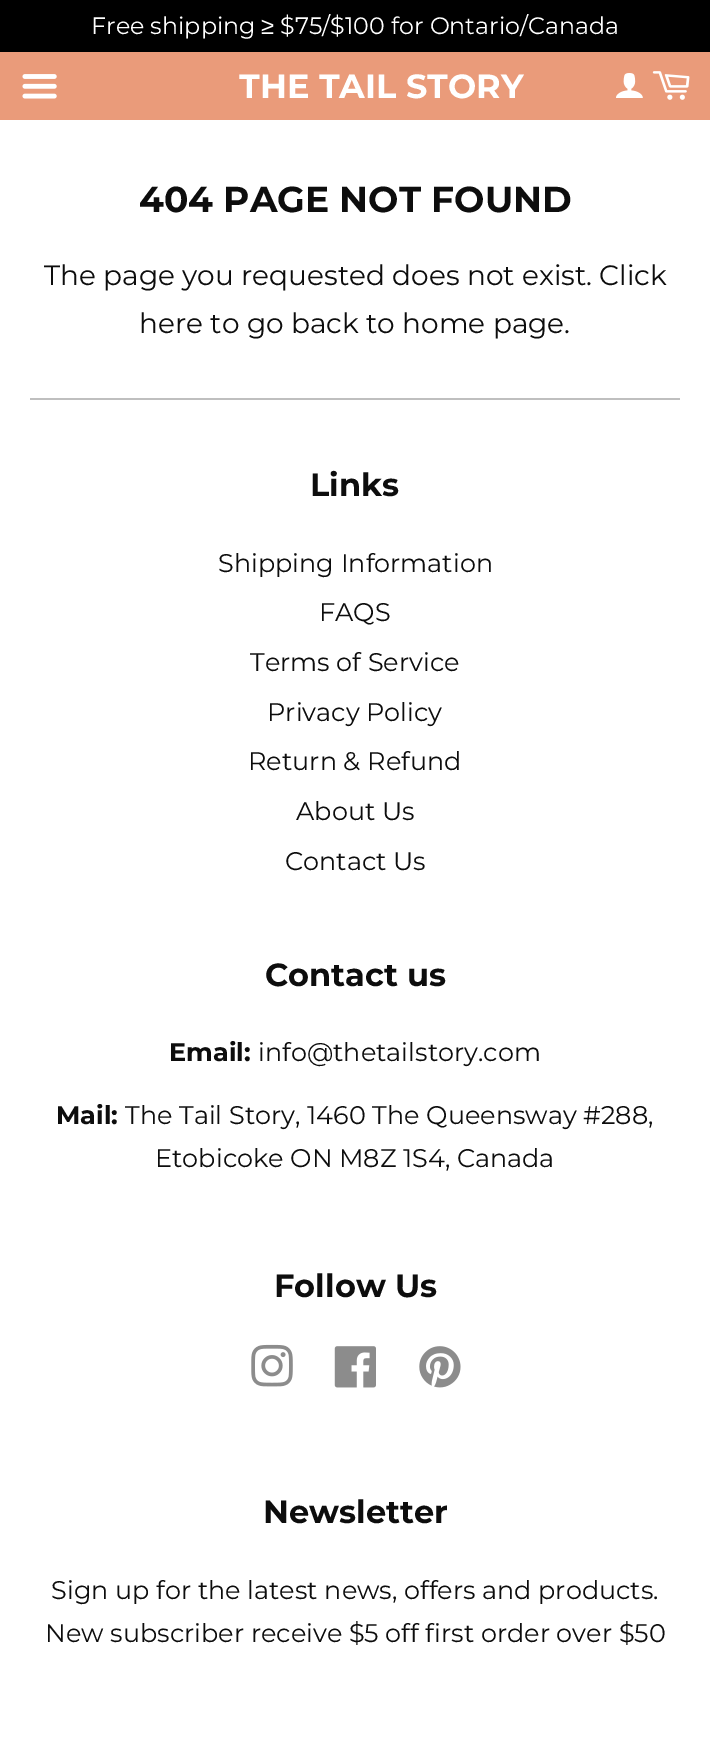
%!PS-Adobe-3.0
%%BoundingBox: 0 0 710 1745
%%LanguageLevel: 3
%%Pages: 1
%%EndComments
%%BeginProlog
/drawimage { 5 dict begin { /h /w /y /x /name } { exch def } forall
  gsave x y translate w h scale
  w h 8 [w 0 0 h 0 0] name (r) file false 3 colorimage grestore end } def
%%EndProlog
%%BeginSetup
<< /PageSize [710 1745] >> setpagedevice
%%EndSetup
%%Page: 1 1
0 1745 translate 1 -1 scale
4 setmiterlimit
1 setgray
0 0 710 1745 rectfill
0.918 0.608 0.478 setrgbcolor
0 52 710 68 rectfill
0 setgray
0 0 710 52 rectfill
(images/1.raw) 22 74 35 25 drawimage
(images/2.raw) 616 73 27 25 drawimage
(images/3.raw) 652 71 38 29 drawimage
0.749 setgray
30 398 650 2 rectfill
(images/4.raw) 251 1344 42 43 drawimage
(images/5.raw) 334 1346 42 42 drawimage
(images/6.raw) 419 1346 42 42 drawimage
/Montserrat-Regular [23.75 0 0 -23.75 0 0] selectfont
1 setgray
91 34 moveto (Free shipping) show
/LiberationSans-Regular [23.75 0 0 -23.75 0 0] selectfont
261 34 moveto (≥) show
/Montserrat-Regular [23.75 0 0 -23.75 0 0] selectfont
280 34 moveto ($75/$100 for Ontario/Canada) show
/Montserrat-Bold [33.5 0 0 -33.5 0 0] selectfont
239 98 moveto (THE TAIL STORY) show
/Montserrat-Bold [36 0 0 -36 0 0] selectfont
0.051 setgray
139 212 moveto (404 PAGE NOT FOUND) show
/Montserrat-Regular [28 0 0 -28 0 0] selectfont
44 285 moveto (The page you requested does not exist. Click) show
139 333 moveto (here to go back to home page.) show
/Montserrat-Bold [32 0 0 -32 0 0] selectfont
310 496 moveto (Links) show
/Montserrat-Regular [25.5 0 0 -25.5 0 0] selectfont
218 572 moveto (Shipping Information) show
319 621 moveto (FAQS) show
250 671 moveto (Terms of Service) show
267 721 moveto (Privacy Policy) show
248 770 moveto (Return & Refund) show
296 820 moveto (About Us) show
285 870 moveto (Contact Us) show
/Montserrat-Bold [32 0 0 -32 0 0] selectfont
265 986 moveto (Contact us) show
/Montserrat-Bold [25.5 0 0 -25.5 0 0] selectfont
169 1061 moveto (Email:) show
/Montserrat-Regular [25.5 0 0 -25.5 0 0] selectfont
258 1061 moveto (info@thetailstory.com) show
/Montserrat-Bold [25.5 0 0 -25.5 0 0] selectfont
56 1124 moveto (Mail:) show
/Montserrat-Regular [25.5 0 0 -25.5 0 0] selectfont
125 1124 moveto (The Tail Story, 1460 The Queensway #288,) show
155 1167 moveto (Etobicoke ON M8Z 1S4, Canada) show
/Montserrat-Bold [32 0 0 -32 0 0] selectfont
274 1297 moveto (Follow Us) show
263 1523 moveto (Newsletter) show
/Montserrat-Regular [25.5 0 0 -25.5 0 0] selectfont
51 1599 moveto (Sign up for the latest news, offers and products.) show
45 1642 moveto (New subscriber receive $5 off first order over $50) show
showpage
%%EOF
